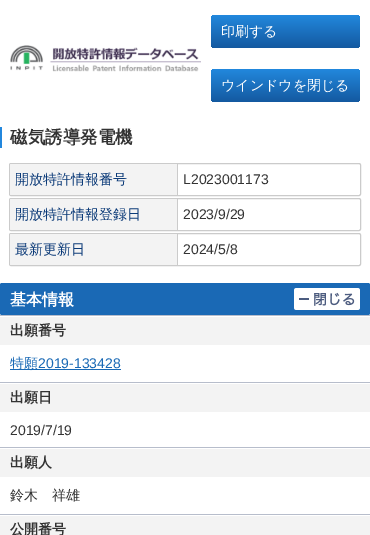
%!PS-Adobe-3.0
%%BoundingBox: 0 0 370 535
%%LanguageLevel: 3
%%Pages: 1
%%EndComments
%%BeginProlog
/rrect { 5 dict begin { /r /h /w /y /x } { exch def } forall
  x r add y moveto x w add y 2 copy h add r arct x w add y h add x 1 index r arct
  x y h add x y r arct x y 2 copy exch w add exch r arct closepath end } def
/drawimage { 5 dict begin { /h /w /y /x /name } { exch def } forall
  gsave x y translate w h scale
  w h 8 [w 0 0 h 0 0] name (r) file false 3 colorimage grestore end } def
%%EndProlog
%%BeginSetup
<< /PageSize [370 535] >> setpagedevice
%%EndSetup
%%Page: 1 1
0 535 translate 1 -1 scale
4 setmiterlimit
1 setgray
0 0 370 535 rectfill
(images/1.raw) 10 45 191 27 drawimage
gsave 211 15 149 33 4 rrect clip newpath
<< /ShadingType 2 /ColorSpace /DeviceRGB /Coords [286 15 286 48] /Extend [true true] /Function << /FunctionType 2 /Domain [0 1] /C0 [0.133 0.533 0.867] /C1 [0.078 0.349 0.627] /N 1 >> >> shfill grestore
gsave 211 69 149 33 4 rrect clip newpath
<< /ShadingType 2 /ColorSpace /DeviceRGB /Coords [286 69 286 102] /Extend [true true] /Function << /FunctionType 2 /Domain [0 1] /C0 [0.133 0.533 0.867] /C1 [0.078 0.349 0.627] /N 1 >> >> shfill grestore
0.133 0.529 0.867 setrgbcolor
0 127 2 21 rectfill
0.796 setgray
9.5 163.5 351 32 1.5 rrect stroke
0.953 setgray
newpath 11 164 moveto 178 164 lineto 178 195 lineto 11 195 lineto 10.5 195 10 194.5 10 194 curveto 10 165 lineto 10 164.5 10.5 164 11 164 curveto closepath fill
0.796 setgray
177 164 1 31 rectfill
9.5 198.5 351 32 1.5 rrect stroke
0.953 setgray
newpath 11 199 moveto 178 199 lineto 178 230 lineto 11 230 lineto 10.5 230 10 229.5 10 229 curveto 10 200 lineto 10 199.5 10.5 199 11 199 curveto closepath fill
0.796 setgray
177 199 1 31 rectfill
9.5 233.5 351 32 1.5 rrect stroke
0.953 setgray
newpath 11 234 moveto 178 234 lineto 178 265 lineto 11 265 lineto 10.5 265 10 264.5 10 264 curveto 10 235 lineto 10 234.5 10.5 234 11 234 curveto closepath fill
0.796 setgray
177 234 1 31 rectfill
0.102 0.412 0.71 setrgbcolor
0 283 370 32 2 rrect fill
(images/2.raw) 294 288 66 22 drawimage
0.718 0.741 0.796 setrgbcolor
0 315 370 1 rectfill
0.953 setgray
0 317 370 28 rectfill
0.718 0.741 0.796 setrgbcolor
0 382 370 1 rectfill
0.098 0.412 0.71 setrgbcolor
10 369 111 1 rectfill
0.953 setgray
0 384 370 28 rectfill
0.718 0.741 0.796 setrgbcolor
0 447 370 1 rectfill
0.953 setgray
0 449 370 28 rectfill
0.718 0.741 0.796 setrgbcolor
0 514 370 1 rectfill
0.953 setgray
0 516 370 19 rectfill
/WenQuanYiZenHei-Medium [14 0 0 -14 0 0] selectfont
1 setgray
221 36 moveto (印刷する) show
221 90 moveto (ウインドウを閉じる) show
/WenQuanYiZenHei-Bold [17.5 0 0 -17.5 0 0] selectfont
0.2 setgray
10 143 moveto (磁気誘導発電機) show
/WenQuanYiZenHei-Medium [14 0 0 -14 0 0] selectfont
0.043 0.227 0.471 setrgbcolor
15 184 moveto (開放特許情報番号) show
/LiberationSans-Regular [14 0 0 -14 0 0] selectfont
0.2 setgray
183 184 moveto (L2023001173) show
/WenQuanYiZenHei-Medium [14 0 0 -14 0 0] selectfont
0.043 0.227 0.471 setrgbcolor
15 219 moveto (開放特許情報登録日) show
/LiberationSans-Regular [14 0 0 -14 0 0] selectfont
0.2 setgray
183 219 moveto (2023/9/29) show
/WenQuanYiZenHei-Medium [14 0 0 -14 0 0] selectfont
0.043 0.227 0.471 setrgbcolor
15 254 moveto (最新更新日) show
/LiberationSans-Regular [14 0 0 -14 0 0] selectfont
0.2 setgray
183 254 moveto (2024/5/8) show
/WenQuanYiZenHei-Bold [16 0 0 -16 0 0] selectfont
1 setgray
10 305 moveto (基本情報) show
/WenQuanYiZenHei-Bold [14 0 0 -14 0 0] selectfont
0.2 setgray
10 335 moveto (出願番号) show
/WenQuanYiZenHei-Medium [14 0 0 -14 0 0] selectfont
0.098 0.412 0.71 setrgbcolor
10 368 moveto (特願) show
/LiberationSans-Regular [14 0 0 -14 0 0] selectfont
38 368 moveto (2019-133428) show
/WenQuanYiZenHei-Bold [14 0 0 -14 0 0] selectfont
0.2 setgray
10 402 moveto (出願日) show
/LiberationSans-Regular [14 0 0 -14 0 0] selectfont
10 435 moveto (2019/7/19) show
/WenQuanYiZenHei-Bold [14 0 0 -14 0 0] selectfont
10 467 moveto (出願人) show
/WenQuanYiZenHei-Medium [14 0 0 -14 0 0] selectfont
10 500 moveto (鈴木　祥雄) show
/WenQuanYiZenHei-Bold [14 0 0 -14 0 0] selectfont
10 534 moveto (公開番号) show
showpage
%%EOF
